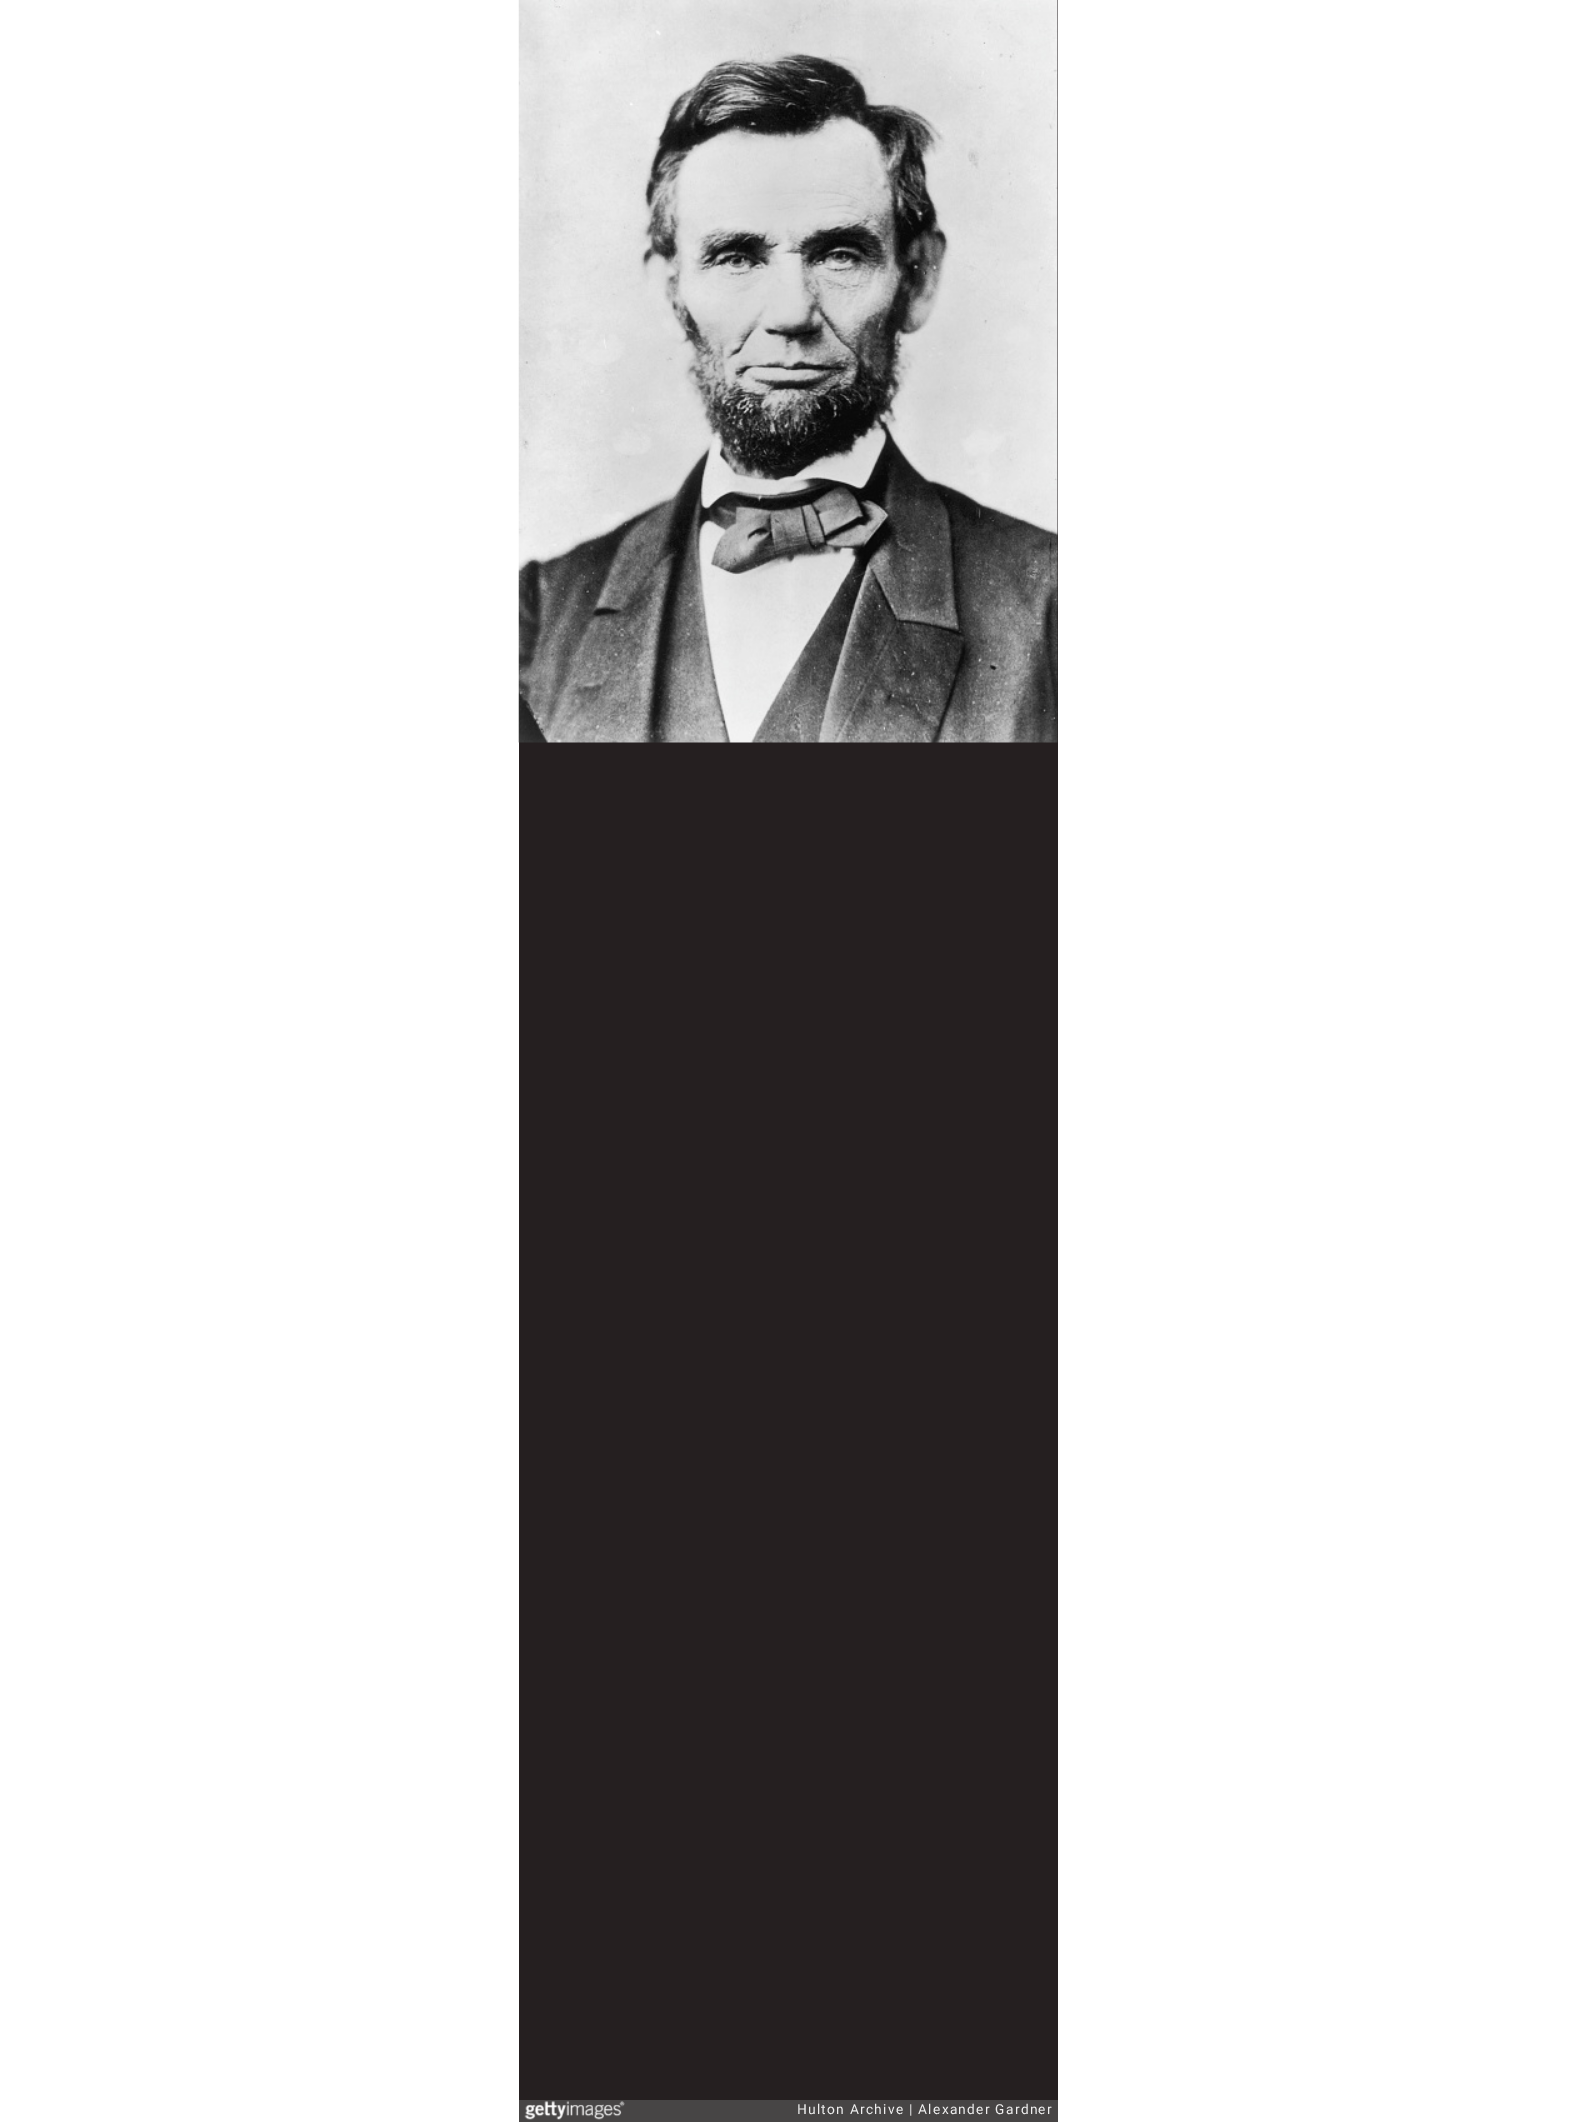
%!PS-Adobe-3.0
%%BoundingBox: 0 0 1576 2122
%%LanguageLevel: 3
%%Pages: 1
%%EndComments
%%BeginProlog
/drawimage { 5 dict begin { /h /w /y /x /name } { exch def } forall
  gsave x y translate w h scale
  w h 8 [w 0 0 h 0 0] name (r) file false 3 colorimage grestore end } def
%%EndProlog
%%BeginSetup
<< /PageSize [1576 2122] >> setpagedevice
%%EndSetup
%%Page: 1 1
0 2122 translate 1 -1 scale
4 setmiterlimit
1 setgray
0 0 1576 2122 rectfill
0.145 0.122 0.125 setrgbcolor
519 0 539 2100 rectfill
(images/1.raw) 518 0 540 743 drawimage
0.278 0.271 0.271 setrgbcolor
519 2100 539 22 rectfill
(images/2.raw) 524 2101 101 19 drawimage
/Roboto-Regular [13.75 0 0 -13.75 0 0] selectfont
0.933 setgray
797 2114 moveto 1.25 0 (Hulton Archive | Alexander Gardner) ashow
showpage
%%EOF
